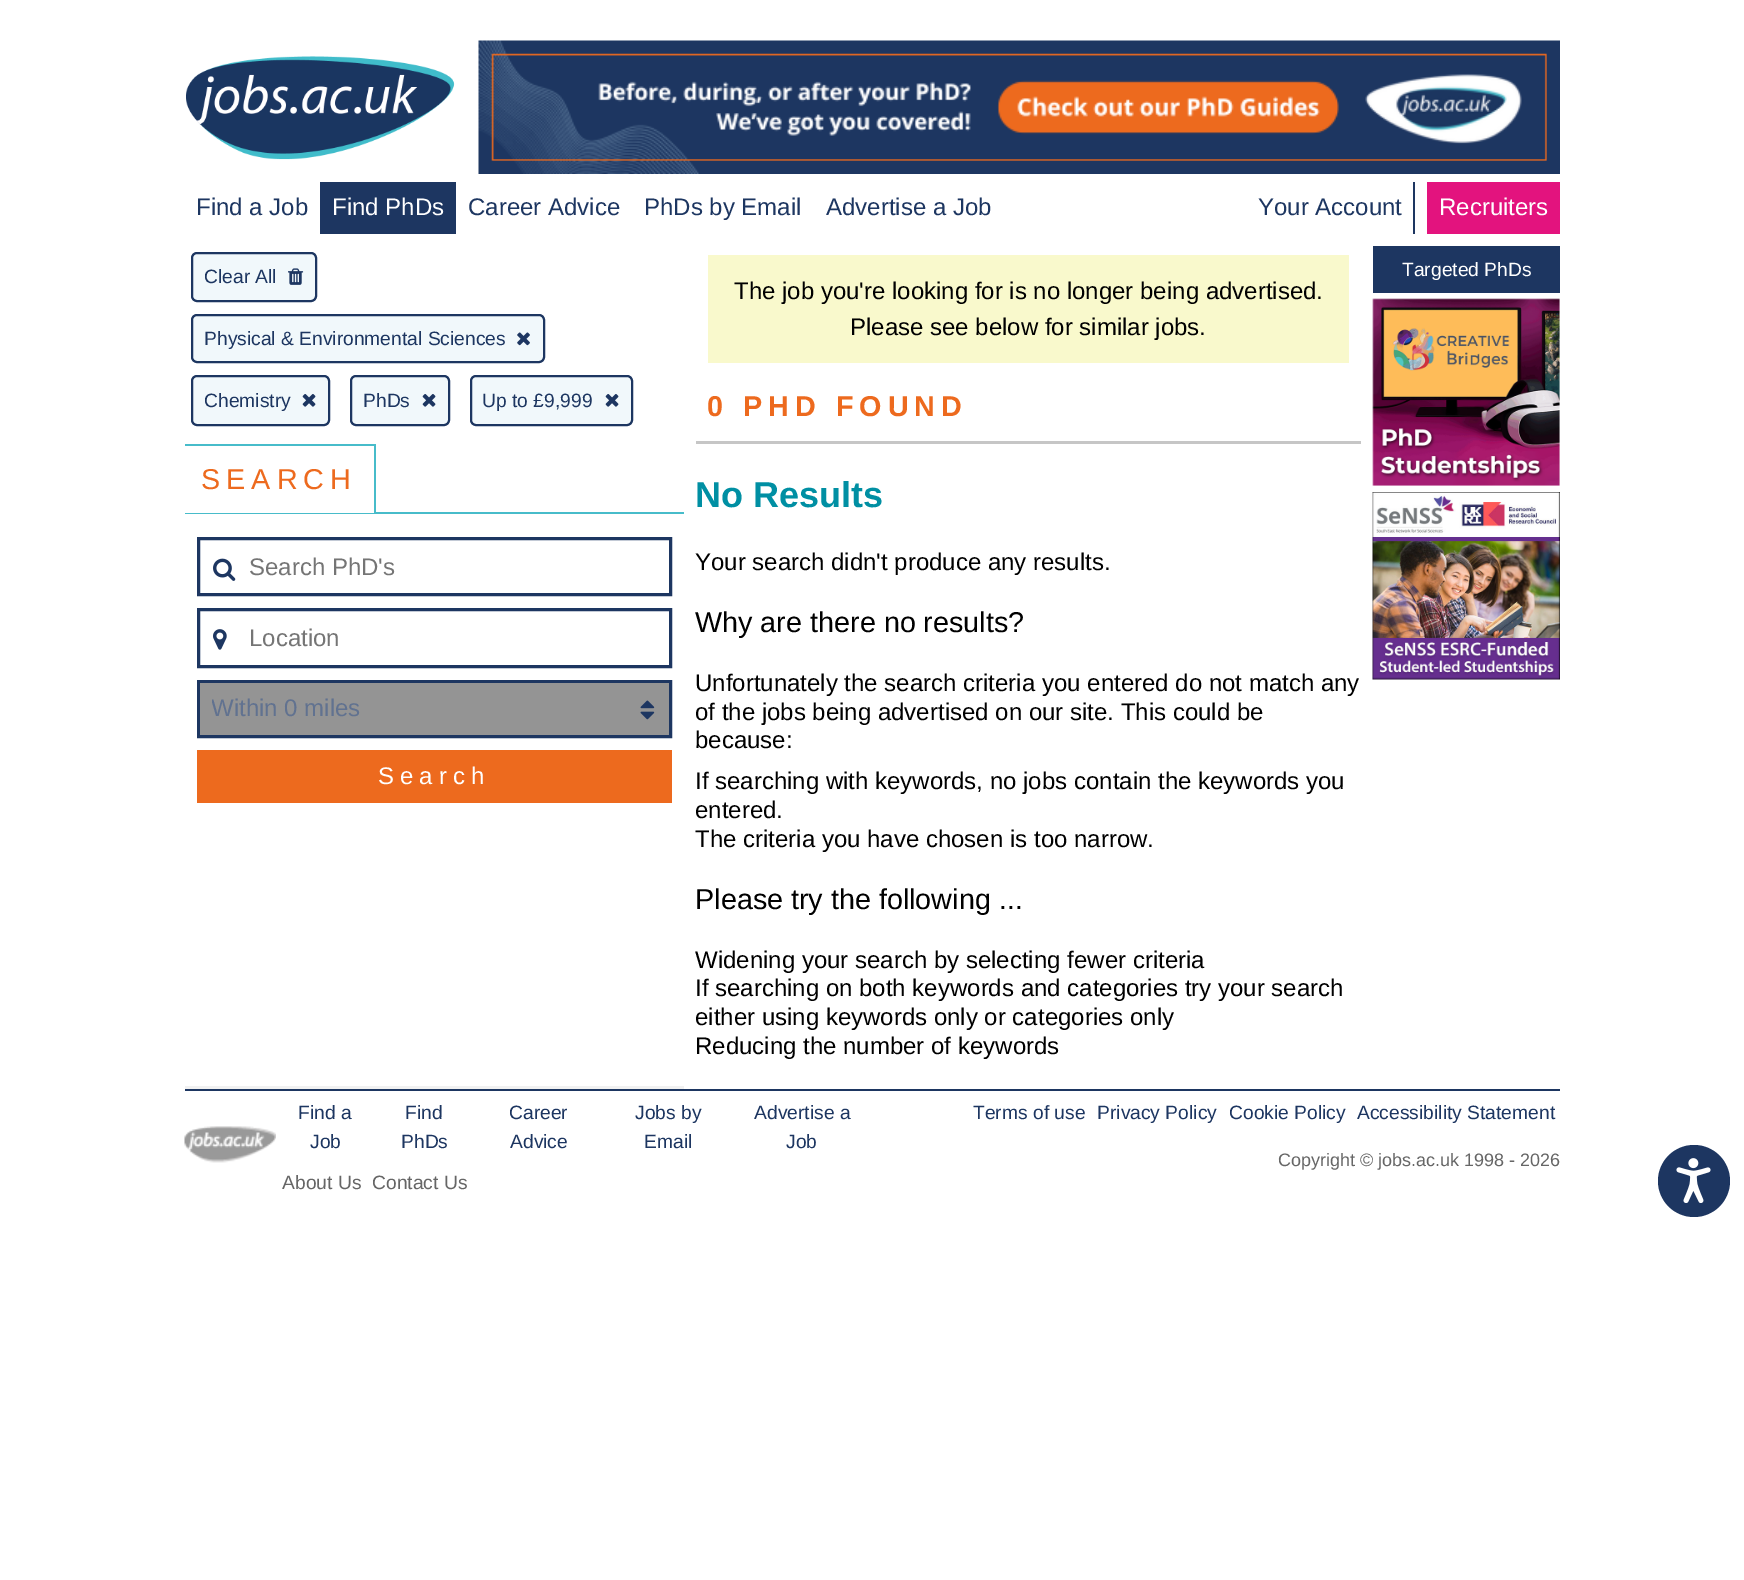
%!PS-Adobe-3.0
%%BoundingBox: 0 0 1744 1580
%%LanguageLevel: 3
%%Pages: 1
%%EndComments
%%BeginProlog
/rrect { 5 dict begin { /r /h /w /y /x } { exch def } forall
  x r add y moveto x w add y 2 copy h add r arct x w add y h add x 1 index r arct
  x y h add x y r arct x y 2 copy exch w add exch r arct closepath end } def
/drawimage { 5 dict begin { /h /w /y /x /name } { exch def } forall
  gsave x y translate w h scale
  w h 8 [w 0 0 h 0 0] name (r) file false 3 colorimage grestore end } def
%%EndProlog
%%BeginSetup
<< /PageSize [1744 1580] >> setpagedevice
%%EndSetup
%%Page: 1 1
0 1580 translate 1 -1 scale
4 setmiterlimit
1 setgray
0 0 1744 1580 rectfill
(images/1.raw) 186 56 269 104 drawimage
(images/2.raw) 478 40 1082 134 drawimage
0.114 0.212 0.38 setrgbcolor
320 182 136 52 rectfill
1413 182 2 52 rectfill
0.89 0.075 0.494 setrgbcolor
1427 182 133 52 rectfill
0.945 setgray
185 1086 499 3 rectfill
0.945 0.973 0.984 setrgbcolor
192 253 124 48 5 rrect gsave fill grestore
0.114 0.212 0.38 setrgbcolor
2 setlinewidth
stroke
(images/3.raw) 288 268 16 17 drawimage
0.945 0.973 0.984 setrgbcolor
192 315 352 47 5 rrect gsave fill grestore
0.114 0.212 0.38 setrgbcolor
stroke
(images/4.raw) 517 332 13 14 drawimage
0.945 0.973 0.984 setrgbcolor
192 376 137 49 5 rrect gsave fill grestore
0.114 0.212 0.38 setrgbcolor
stroke
(images/5.raw) 302 394 14 13 drawimage
0.945 0.973 0.984 setrgbcolor
351 376 98 49 5 rrect gsave fill grestore
0.114 0.212 0.38 setrgbcolor
stroke
(images/5.raw) 422 394 14 13 drawimage
0.945 0.973 0.984 setrgbcolor
471 376 161 49 5 rrect gsave fill grestore
0.114 0.212 0.38 setrgbcolor
stroke
(images/5.raw) 605 394 14 13 drawimage
0.278 0.737 0.792 setrgbcolor
185 512 499 2 rectfill
1 setgray
185 512 189 1 rectfill
0.278 0.737 0.792 setrgbcolor
185 444 190 2 rectfill
374 444 2 69 rectfill
0.114 0.212 0.38 setrgbcolor
3 setlinewidth
198.5 538.5 472 56 rectstroke
(images/6.raw) 213 558 23 23 drawimage
198.5 609.5 472 57 rectstroke
(images/7.raw) 213 629 14 21 drawimage
198.5 681.5 472 55 rectstroke
0.58 setgray
200 683 469 52 rectfill
(images/8.raw) 640 700 15 20 drawimage
0.929 0.416 0.118 setrgbcolor
197 750 475 53 rectfill
0.976 0.976 0.8 setrgbcolor
708 255 641 108 rectfill
0.776 setgray
696 441 665 3 rectfill
0.114 0.212 0.38 setrgbcolor
1373 246 187 47 rectfill
(images/9.raw) 1372 298 188 188 drawimage
(images/10.raw) 1372 492 188 188 drawimage
185 1089 1375 2 rectfill
(images/11.raw) 184 1126 92 37 drawimage
newpath 1694 1181 36 0 360 arc closepath fill
(images/12.raw) 1676 1158 35 45 drawimage
/LiberationSans-Regular [24 0 0 -24 0 0] selectfont
196 215 moveto (Find a Job) show
1 setgray
332 215 moveto (Find PhDs) show
0.114 0.212 0.38 setrgbcolor
468 215 moveto (Career Advice) show
644 215 moveto (PhDs by Email) show
826 215 moveto (Advertise a Job) show
1258 215 moveto (Your Account) show
1 setgray
1439 215 moveto (Recruiters) show
/LiberationSans-Regular [19.25 0 0 -19.25 0 0] selectfont
0.114 0.212 0.38 setrgbcolor
204 283 moveto (Clear All) show
204 345 moveto (Physical & Environmental Sciences) show
204 407 moveto (Chemistry) show
363 407 moveto (PhDs) show
482 407 moveto (Up to £9,999) show
/LiberationSans-Regular [28.75 0 0 -28.75 0 0] selectfont
0.929 0.416 0.118 setrgbcolor
201 489 moveto 6 0 (SEARCH) ashow
/LiberationSans-Regular [24 0 0 -24 0 0] selectfont
0.459 setgray
249 575 moveto (Search PhD's) show
249 646 moveto (Location) show
gsave
212 695 418 28 rectclip
0.38 0.447 0.565 setrgbcolor
211 716 moveto (Within 0 miles) show
grestore
1 setgray
378 784 moveto 6 0 (Search) ashow
0 setgray
734 299 moveto (The job you're looking for is no longer being advertised.) show
850 335 moveto (Please see below for similar jobs.) show
/LiberationSans-Bold [28.75 0 0 -28.75 0 0] selectfont
0.929 0.416 0.118 setrgbcolor
707 416 moveto 6 0 (0 PHD FOUND) ashow
/LiberationSans-Bold [36 0 0 -36 0 0] selectfont
0 0.561 0.639 setrgbcolor
695 507 moveto (No Results) show
/LiberationSans-Regular [24 0 0 -24 0 0] selectfont
0 setgray
695 570 moveto (Your search didn't produce any results.) show
/LiberationSans-Regular [28.75 0 0 -28.75 0 0] selectfont
695 632 moveto (Why are there no results?) show
/LiberationSans-Regular [24 0 0 -24 0 0] selectfont
695 691 moveto (Unfortunately the search criteria you entered do not match any) show
695 720 moveto (of the jobs being advertised on our site. This could be) show
695 748 moveto (because:) show
695 789 moveto (If searching with keywords, no jobs contain the keywords you) show
695 818 moveto (entered.) show
695 847 moveto (The criteria you have chosen is too narrow.) show
/LiberationSans-Regular [28.75 0 0 -28.75 0 0] selectfont
695 909 moveto (Please try the following ...) show
/LiberationSans-Regular [24 0 0 -24 0 0] selectfont
695 968 moveto (Widening your search by selecting fewer criteria) show
695 996 moveto (If searching on both keywords and categories try your search) show
695 1025 moveto (either using keywords only or categories only) show
695 1054 moveto (Reducing the number of keywords) show
/LiberationSans-Regular [19.25 0 0 -19.25 0 0] selectfont
1 setgray
1402 276 moveto (Targeted PhDs) show
0.114 0.212 0.38 setrgbcolor
298 1119 moveto (Find a) show
310 1148 moveto (Job) show
405 1119 moveto (Find) show
401 1148 moveto (PhDs) show
509 1119 moveto (Career) show
510 1148 moveto (Advice) show
635 1119 moveto (Jobs by) show
644 1148 moveto (Email) show
754 1119 moveto (Advertise a) show
786 1148 moveto (Job) show
0.4 setgray
282 1189 moveto (About Us) show
372 1189 moveto (Contact Us) show
0.114 0.212 0.38 setrgbcolor
973 1119 moveto (Terms of use) show
1097 1119 moveto (Privacy Policy) show
1229 1119 moveto (Cookie Policy) show
1357 1119 moveto (Accessibility Statement) show
/LiberationSans-Regular [18 0 0 -18 0 0] selectfont
0.4 setgray
1278 1166 moveto (Copyright © jobs.ac.uk 1998 - 2026) show
showpage
%%EOF
